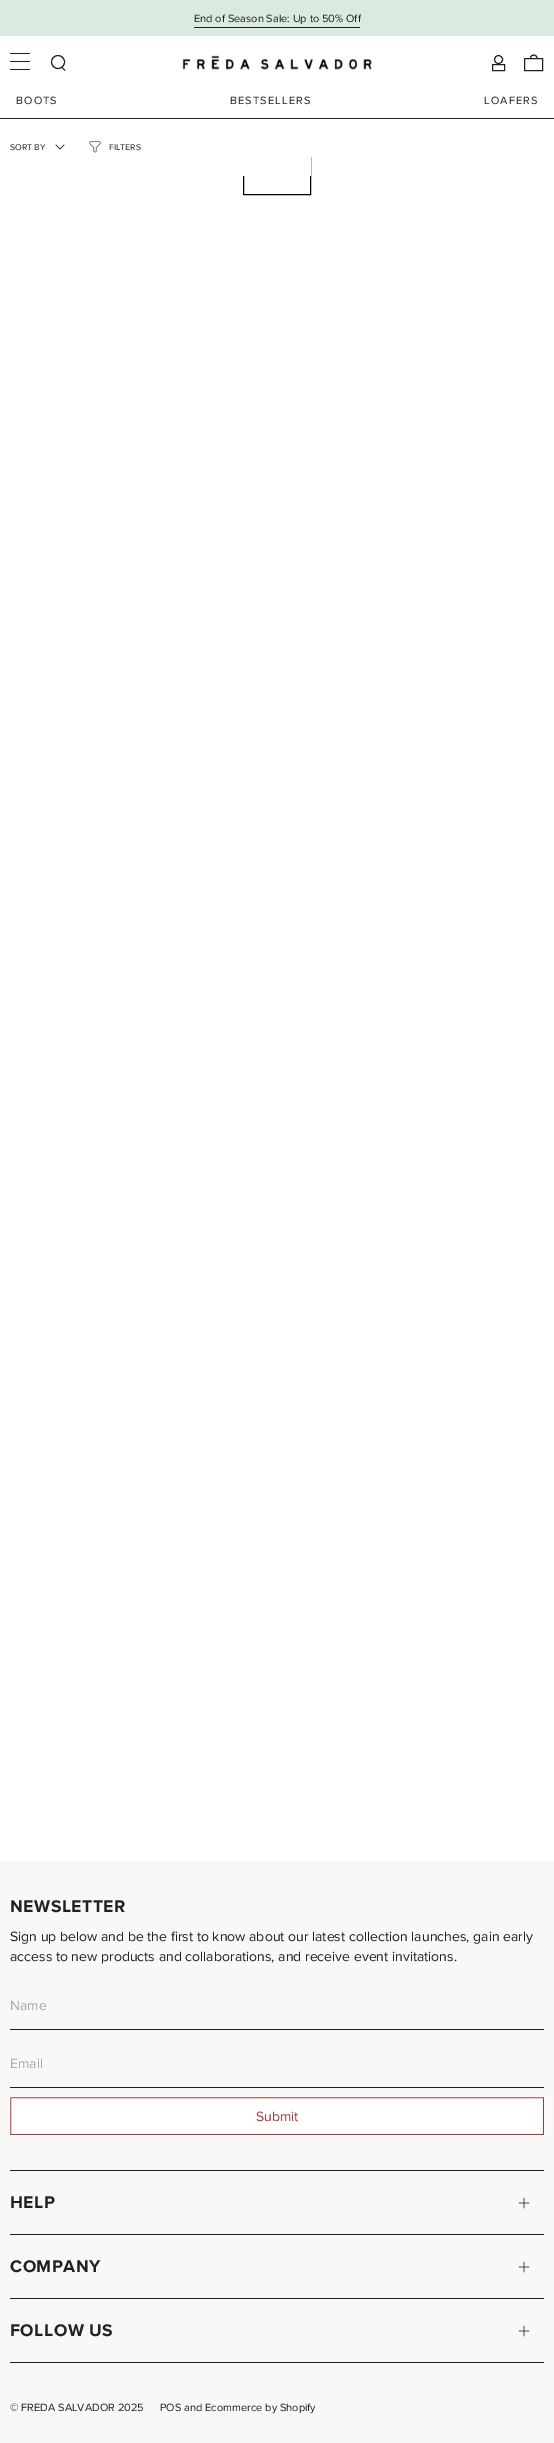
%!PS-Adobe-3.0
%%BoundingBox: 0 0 554 2443
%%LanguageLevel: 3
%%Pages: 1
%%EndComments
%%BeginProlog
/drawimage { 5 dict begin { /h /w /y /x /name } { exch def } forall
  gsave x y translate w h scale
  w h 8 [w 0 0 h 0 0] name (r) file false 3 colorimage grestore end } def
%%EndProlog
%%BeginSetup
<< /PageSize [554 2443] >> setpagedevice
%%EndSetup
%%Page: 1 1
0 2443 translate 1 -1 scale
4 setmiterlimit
1 setgray
0 0 554 2443 rectfill
0.859 0.918 0.878 setrgbcolor
0 0 554 36 rectfill
0.129 setgray
194 27 166 1 rectfill
10 53 20 1 rectfill
10 61 20 1 rectfill
10 69 20 1 rectfill
newpath 58 62 6.5 0 360 arc closepath stroke
newpath 62 67.5 moveto 65 70.5 lineto stroke
(images/1.raw) 182 55 190 15 drawimage
newpath 498.5 59.5 4 0 360 arc closepath stroke
492.5 64.5 12 6 rectstroke
524.5 58.5 18 12 rectstroke
newpath 537 58 moveto 537 54 530.5 54 530.5 58 curveto stroke
0 118 554 1 rectfill
0 setgray
243.5 157.5 67 37 rectstroke
1 setgray
243 157 68 19 rectfill
0.129 setgray
0.7 setlinewidth
1 setlinecap
1 setlinejoin
newpath 56 145 moveto 60 149 lineto 64 145 lineto stroke
(images/2.raw) 89 141 12 12 drawimage
0.976 0.973 0.965 setrgbcolor
0 1861 554 582 rectfill
0.129 setgray
10 2029 534 1 rectfill
10 2087 534 1 rectfill
1 setgray
newpath 10.5 2097.5 moveto 543.5 2097.5 lineto 543.5 2134.5 lineto 10.5 2134.5 lineto closepath gsave fill grestore
0.682 0.22 0.22 setrgbcolor
1 setlinewidth
0 setlinecap
0 setlinejoin
stroke
1 setgray
9.5 2096.5 535 39 rectstroke
0.129 setgray
10 2170 534 1 rectfill
(images/3.raw) 518 2197 12 12 drawimage
10 2234 534 1 rectfill
(images/3.raw) 518 2261 12 12 drawimage
10 2298 534 1 rectfill
10 2362 534 1 rectfill
(images/3.raw) 518 2325 12 12 drawimage
/ProximaNova-Regular [11 0 0 -11 0 0] selectfont
194 22 moveto (End of Season Sale: Up to 50% Off) show
16 104 moveto 1.1 0 (BOOTS) ashow
230 104 moveto 1.1 0 (BESTSELLERS) ashow
484 104 moveto 1.1 0 (LOAFERS) ashow
/ProximaNova-Regular [8.75 0 0 -8.75 0 0] selectfont
10 150 moveto (SORT BY) show
109 150 moveto (FILTERS) show
/ProximaNova-Bold [17.5 0 0 -17.5 0 0] selectfont
10 1912 moveto 0.5 0 (NEWSLETTER) ashow
/ProximaNova-Regular [14 0 0 -14 0 0] selectfont
10 1941 moveto (Sign up below and be the first to know about our latest collection launches, gain early) show
10 1961 moveto (access to new products and collaborations, and receive event invitations.) show
0.659 0.659 0.655 setrgbcolor
10 2010 moveto (Name) show
10 2068 moveto (Email) show
0.682 0.22 0.22 setrgbcolor
256 2121 moveto (Submit) show
/ProximaNova-Bold [17.5 0 0 -17.5 0 0] selectfont
0.129 setgray
10 2208 moveto 0.5 0 (HELP) ashow
10 2272 moveto 0.5 0 (COMPANY) ashow
10 2336 moveto 0.5 0 (FOLLOW US) ashow
/ProximaNova-Regular [11 0 0 -11 0 0] selectfont
10 2411 moveto (© FREDA SALVADOR 2025) show
160 2411 moveto (POS and Ecommerce by Shopify) show
showpage
%%EOF
